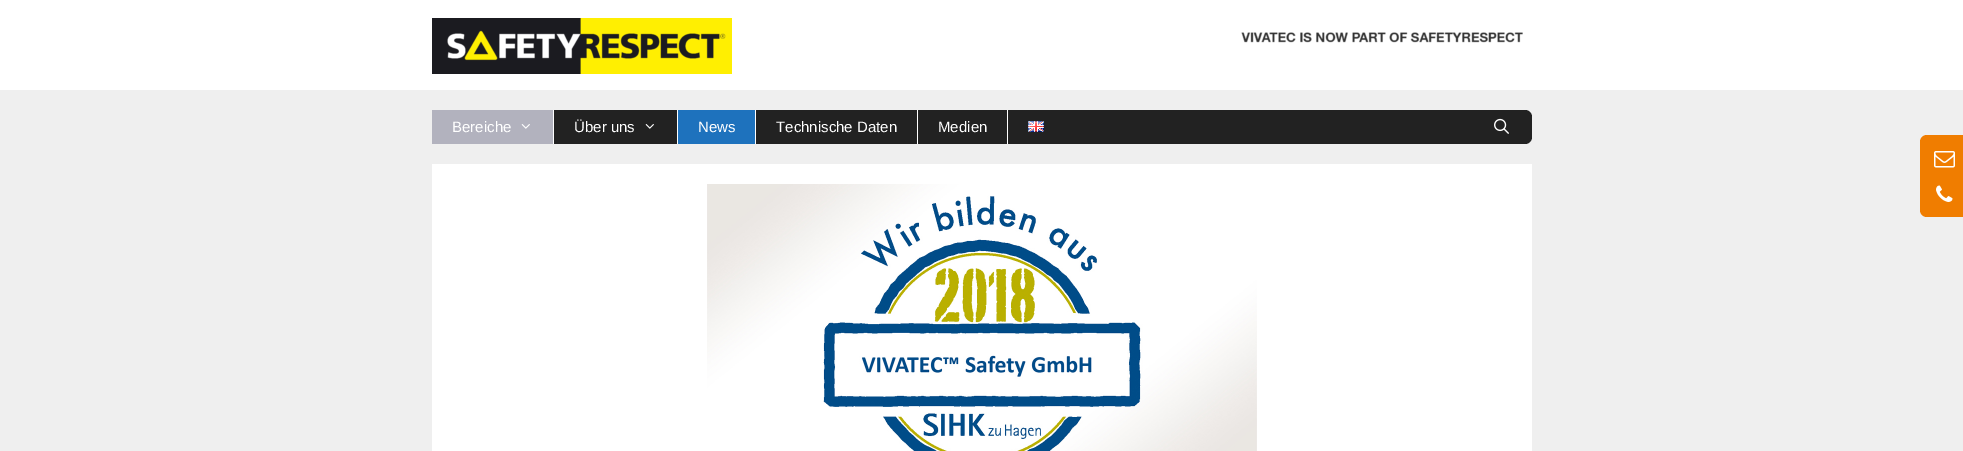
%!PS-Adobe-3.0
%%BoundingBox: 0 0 1963 451
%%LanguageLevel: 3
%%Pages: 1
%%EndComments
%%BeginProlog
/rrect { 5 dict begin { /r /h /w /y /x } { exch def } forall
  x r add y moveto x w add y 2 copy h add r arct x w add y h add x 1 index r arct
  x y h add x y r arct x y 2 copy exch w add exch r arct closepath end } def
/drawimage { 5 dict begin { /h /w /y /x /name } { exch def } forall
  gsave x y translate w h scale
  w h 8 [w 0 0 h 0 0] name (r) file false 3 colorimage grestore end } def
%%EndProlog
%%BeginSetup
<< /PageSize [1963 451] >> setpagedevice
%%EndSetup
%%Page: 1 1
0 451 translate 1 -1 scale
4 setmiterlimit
0.937 setgray
0 0 1963 451 rectfill
1 setgray
0 0 1963 90 rectfill
(images/1.raw) 432 18 300 56 drawimage
(images/2.raw) 1241 32 282 11 drawimage
0.133 setgray
432 110 1100 34 7 rrect fill
1 setgray
553 110 1 34 rectfill
0.698 0.698 0.745 setrgbcolor
432 110 121 34 rectfill
(images/3.raw) 521 124 9 5 drawimage
1 setgray
677 110 1 34 rectfill
(images/4.raw) 645 124 9 5 drawimage
755 110 1 34 rectfill
0.118 0.447 0.741 setrgbcolor
678 110 77 34 rectfill
1 setgray
917 110 1 34 rectfill
1007 110 1 34 rectfill
(images/5.raw) 1028 121 16 11 drawimage
(images/6.raw) 1494 118 15 16 drawimage
432 164 1100 287 rectfill
(images/7.raw) 707 184 550 267 drawimage
0.941 0.49 0 setrgbcolor
newpath 1927 135 moveto 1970 135 lineto 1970 217 lineto 1927 217 lineto 1923 217 1920 214 1920 210 curveto 1920 142 lineto 1920 138 1923 135 1927 135 curveto closepath fill
(images/8.raw) 1934 151 21 17 drawimage
(images/9.raw) 1936 185 17 17 drawimage
/LiberationSans-Regular [15 0 0 -15 0 0] selectfont
1 setgray
452 132 moveto (Bereiche) show
574 132 moveto (Über uns) show
698 132 moveto (News) show
776 132 moveto (Technische Daten) show
938 132 moveto (Medien) show
showpage
%%EOF
